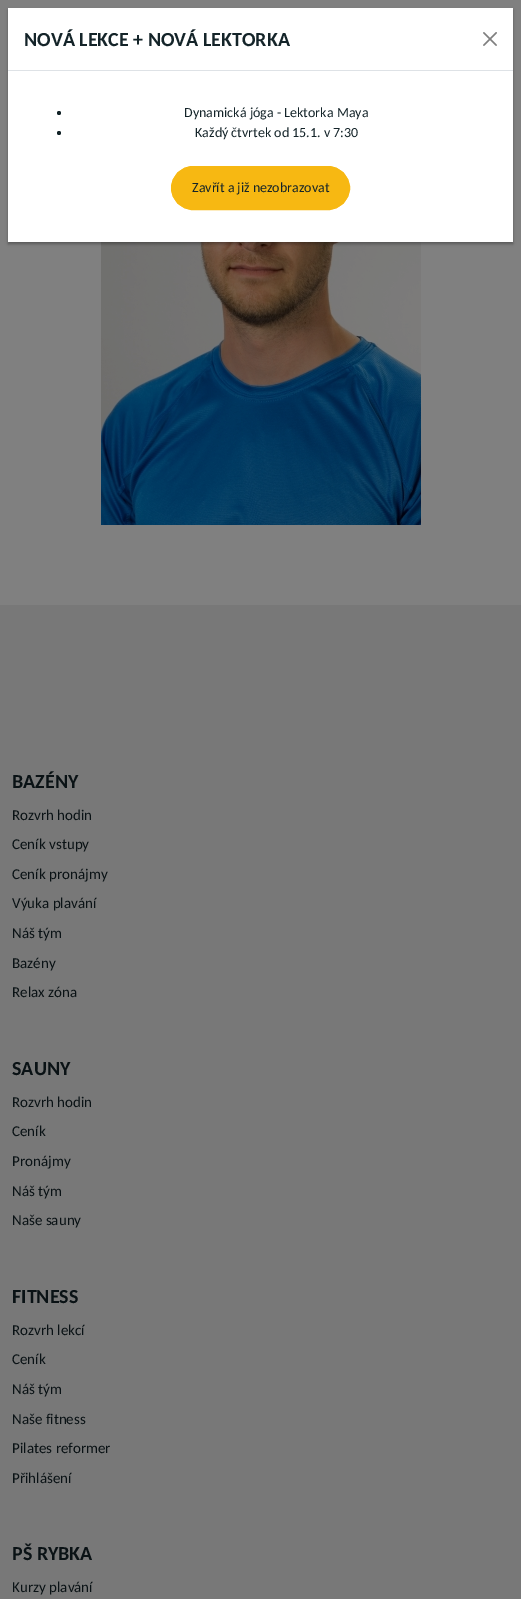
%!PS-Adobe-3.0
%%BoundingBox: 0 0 521 1599
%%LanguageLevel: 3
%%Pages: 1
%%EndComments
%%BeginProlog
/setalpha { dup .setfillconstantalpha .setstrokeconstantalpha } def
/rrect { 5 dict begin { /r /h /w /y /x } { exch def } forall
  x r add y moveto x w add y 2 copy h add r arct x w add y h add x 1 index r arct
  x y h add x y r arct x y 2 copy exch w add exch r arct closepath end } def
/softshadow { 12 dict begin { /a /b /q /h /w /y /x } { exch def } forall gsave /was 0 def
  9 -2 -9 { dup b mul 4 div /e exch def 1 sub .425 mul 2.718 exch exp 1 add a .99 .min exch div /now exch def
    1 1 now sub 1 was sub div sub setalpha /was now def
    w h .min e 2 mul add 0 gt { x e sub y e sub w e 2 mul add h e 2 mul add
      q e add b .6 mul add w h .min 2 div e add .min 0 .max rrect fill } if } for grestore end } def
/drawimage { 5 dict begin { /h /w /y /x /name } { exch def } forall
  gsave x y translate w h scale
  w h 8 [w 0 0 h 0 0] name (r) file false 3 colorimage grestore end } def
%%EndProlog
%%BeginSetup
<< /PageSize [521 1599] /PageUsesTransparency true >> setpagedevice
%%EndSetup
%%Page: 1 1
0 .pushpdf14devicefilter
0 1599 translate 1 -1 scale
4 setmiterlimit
0.471 setgray
0 0 521 1599 rectfill
0.502 setgray
0 0 521 605 rectfill
(images/1.raw) 101 242 320 283 drawimage
0 setgray
8 10 505 234 0 1.5 0.3 softshadow
1 setgray
8 8 505 234 rectfill
0.871 0.886 0.902 setrgbcolor
8 70 505 1 rectfill
(images/2.raw) 483 32 14 14 drawimage
0.078 0.141 0.161 setrgbcolor
newpath 59 113 2 0 360 arc closepath fill
newpath 59 133 2 0 360 arc closepath fill
0.969 0.722 0.071 setrgbcolor
171.5 166.5 178 43 21.5 rrect gsave fill grestore
stroke
/Carlito-Bold [20 0 0 -20 0 0] selectfont
0.078 0.141 0.161 setrgbcolor
24 46 moveto (NOVÁ LEKCE + NOVÁ LEKTORKA) show
/Carlito-Regular [14 0 0 -14 0 0] selectfont
184 117 moveto (Dynamická jóga - Lektorka Maya) show
195 137 moveto (Každý čtvrtek od 15.1. v 7:30) show
192 192 moveto (Zavřít a již nezobrazovat) show
/Carlito-Bold [20 0 0 -20 0 0] selectfont
0.039 0.071 0.082 setrgbcolor
12 788 moveto (BAZÉNY) show
/Carlito-Regular [15 0 0 -15 0 0] selectfont
12 820 moveto (Rozvrh hodin) show
12 849 moveto (Ceník vstupy) show
12 879 moveto (Ceník pronájmy) show
12 908 moveto (Výuka plavání) show
12 938 moveto (Náš tým) show
12 968 moveto (Bazény) show
12 997 moveto (Relax zóna) show
/Carlito-Bold [20 0 0 -20 0 0] selectfont
12 1075 moveto (SAUNY) show
/Carlito-Regular [15 0 0 -15 0 0] selectfont
12 1107 moveto (Rozvrh hodin) show
12 1136 moveto (Ceník) show
12 1166 moveto (Pronájmy) show
12 1196 moveto (Náš tým) show
12 1225 moveto (Naše sauny) show
/Carlito-Bold [20 0 0 -20 0 0] selectfont
12 1303 moveto (FITNESS) show
/Carlito-Regular [15 0 0 -15 0 0] selectfont
12 1335 moveto (Rozvrh lekcí) show
12 1364 moveto (Ceník) show
12 1394 moveto (Náš tým) show
12 1424 moveto (Naše fitness) show
12 1453 moveto (Pilates reformer) show
12 1483 moveto (Přihlášení) show
/Carlito-Bold [20 0 0 -20 0 0] selectfont
12 1560 moveto (PŠ RYBKA) show
/Carlito-Regular [15 0 0 -15 0 0] selectfont
12 1592 moveto (Kurzy plavání) show
.poppdf14devicefilter showpage
%%EOF
